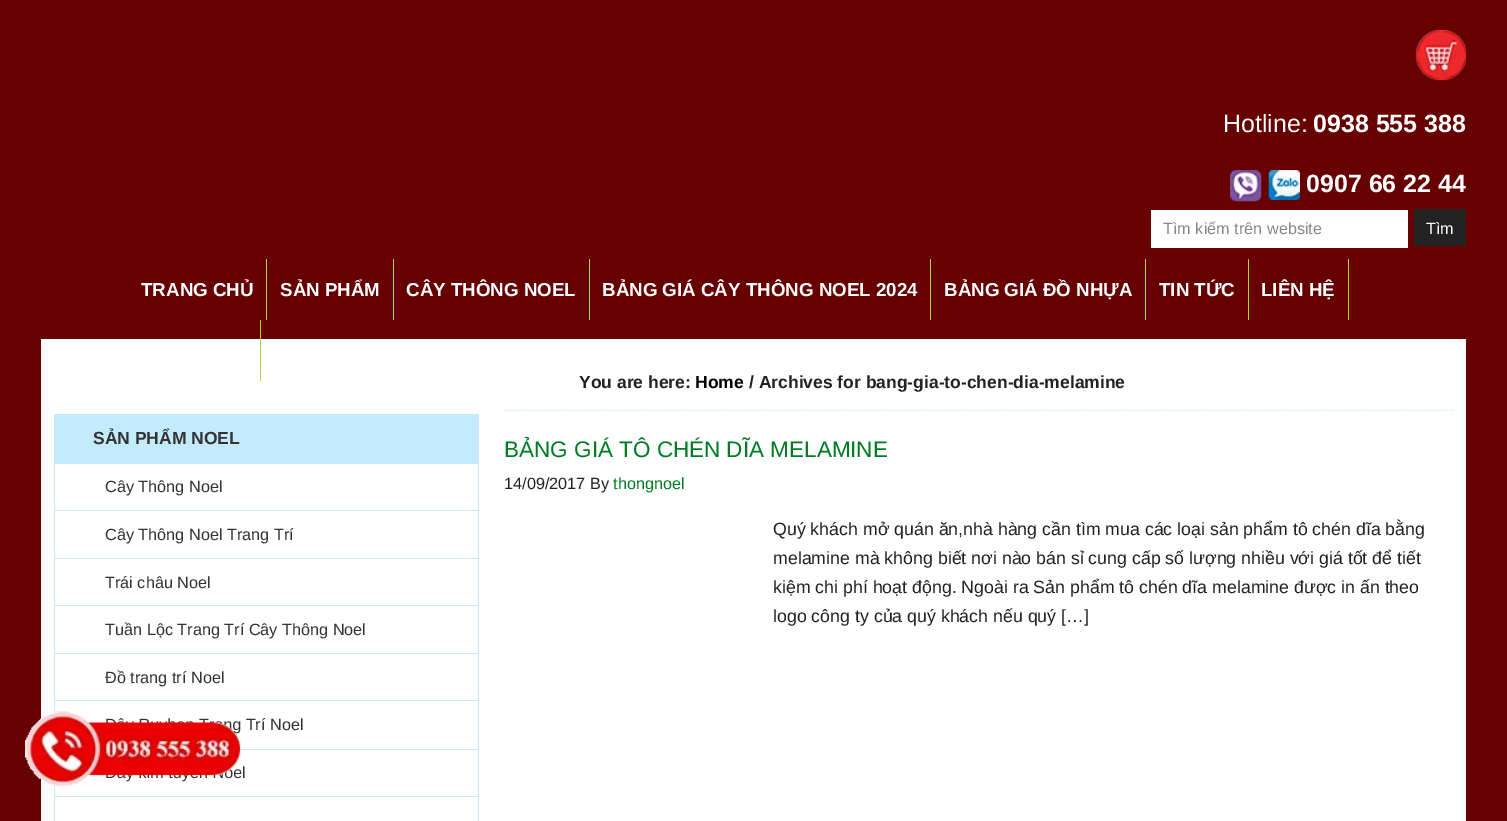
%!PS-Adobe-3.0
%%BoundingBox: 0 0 1507 821
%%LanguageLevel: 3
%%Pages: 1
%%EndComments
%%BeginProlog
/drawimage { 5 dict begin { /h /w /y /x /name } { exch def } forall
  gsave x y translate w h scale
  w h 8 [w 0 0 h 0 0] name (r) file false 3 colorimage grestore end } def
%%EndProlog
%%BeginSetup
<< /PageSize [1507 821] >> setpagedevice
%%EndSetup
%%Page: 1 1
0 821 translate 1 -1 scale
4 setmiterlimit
0.404 0 0.004 setrgbcolor
0 0 1507 821 rectfill
(images/1.raw) 1416 30 51 50 drawimage
(images/2.raw) 1230 170 32 32 drawimage
(images/3.raw) 1268 170 32 30 drawimage
1 setgray
1151 210 257 38 rectfill
0.133 setgray
1414 209 52 37 rectfill
0.667 0.839 0.22 setrgbcolor
266 259 1 61 rectfill
393 259 1 61 rectfill
589 259 1 61 rectfill
930 259 1 61 rectfill
1145 259 1 61 rectfill
1248 259 1 61 rectfill
1348 259 1 61 rectfill
1 setgray
41 339 1425 482 rectfill
0.667 0.839 0.22 setrgbcolor
260 320 1 61 rectfill
0.788 0.906 1 setrgbcolor
478 414 1 407 rectfill
54 414 1 407 rectfill
0.769 0.922 0.988 setrgbcolor
55 414 423 49 rectfill
0.788 0.906 1 setrgbcolor
55 463 423 1 rectfill
55 510 423 1 rectfill
55 558 423 1 rectfill
55 605 423 1 rectfill
55 653 423 1 rectfill
55 700 423 1 rectfill
239 749 239 1 rectfill
55 796 423 1 rectfill
0.812 0.937 0.988 setrgbcolor
1.2 setlinewidth
[1.25 1.25] 0 setdash
newpath 504 410.5 moveto 1454 410.5 lineto stroke
/LiberationSans-Regular [25 0 0 -25 0 0] selectfont
1 setgray
1223 132 moveto (Hotline:) show
/LiberationSans-Bold [25 0 0 -25 0 0] selectfont
1313 132 moveto (0938 555 388) show
1306 192 moveto (0907 66 22 44) show
/LiberationSans-Regular [16.25 0 0 -16.25 0 0] selectfont
0.533 setgray
1163 234 moveto (Tìm kiếm trên website) show
1 setgray
1426 234 moveto (Tìm) show
/LiberationSans-Bold [18.75 0 0 -18.75 0 0] selectfont
141 296 moveto (TRANG CHỦ) show
280 296 moveto (SẢN PHẨM) show
406 296 moveto (CÂY THÔNG NOEL) show
602 296 moveto (BẢNG GIÁ CÂY THÔNG NOEL 2024) show
944 296 moveto (BẢNG GIÁ ĐỒ NHỰA) show
1159 296 moveto (TIN TỨC) show
1261 296 moveto (LIÊN HỆ) show
/LiberationSans-Bold [17.5 0 0 -17.5 0 0] selectfont
0.2 setgray
93 444 moveto (SẢN PHẨM NOEL) show
/LiberationSans-Regular [16.25 0 0 -16.25 0 0] selectfont
105 492 moveto (Cây Thông Noel) show
105 540 moveto (Cây Thông Noel Trang Trí) show
105 588 moveto (Trái châu Noel) show
105 635 moveto (Tuần Lộc Trang Trí Cây Thông Noel) show
105 683 moveto (Đồ trang trí Noel) show
232 730 moveto (g Trí Noel) show
233 778 moveto (el) show
/LiberationSans-Bold [17.5 0 0 -17.5 0 0] selectfont
0.133 setgray
579 388 moveto (You are here:) show
0 setgray
695 388 moveto (Home) show
0.133 setgray
749 388 moveto (/ Archives for bang-gia-to-chen-dia-melamine) show
/LiberationSans-Regular [22.5 0 0 -22.5 0 0] selectfont
0 0.49 0.137 setrgbcolor
504 457 moveto (BẢNG GIÁ TÔ CHÉN DĨA MELAMINE) show
/LiberationSans-Regular [16.25 0 0 -16.25 0 0] selectfont
0.133 setgray
504 489 moveto (14/09/2017 By) show
0 0.49 0.137 setrgbcolor
613 489 moveto (thongnoel) show
/LiberationSans-Regular [17.75 0 0 -17.75 0 0] selectfont
0.133 setgray
773 535 moveto (Quý khách mở quán ăn,nhà hàng cần tìm mua các loại sản phẩm tô chén dĩa bằng) show
773 564 moveto (melamine mà không biết nơi nào bán sỉ cung cấp số lượng nhiều với giá tốt để tiết) show
773 593 moveto (kiệm chi phí hoạt động. Ngoài ra Sản phẩm tô chén dĩa melamine được in ấn theo) show
773 622 moveto (logo công ty của quý khách nếu quý […]) show
(images/4.raw) 25 711 216 76 drawimage
showpage
%%EOF
